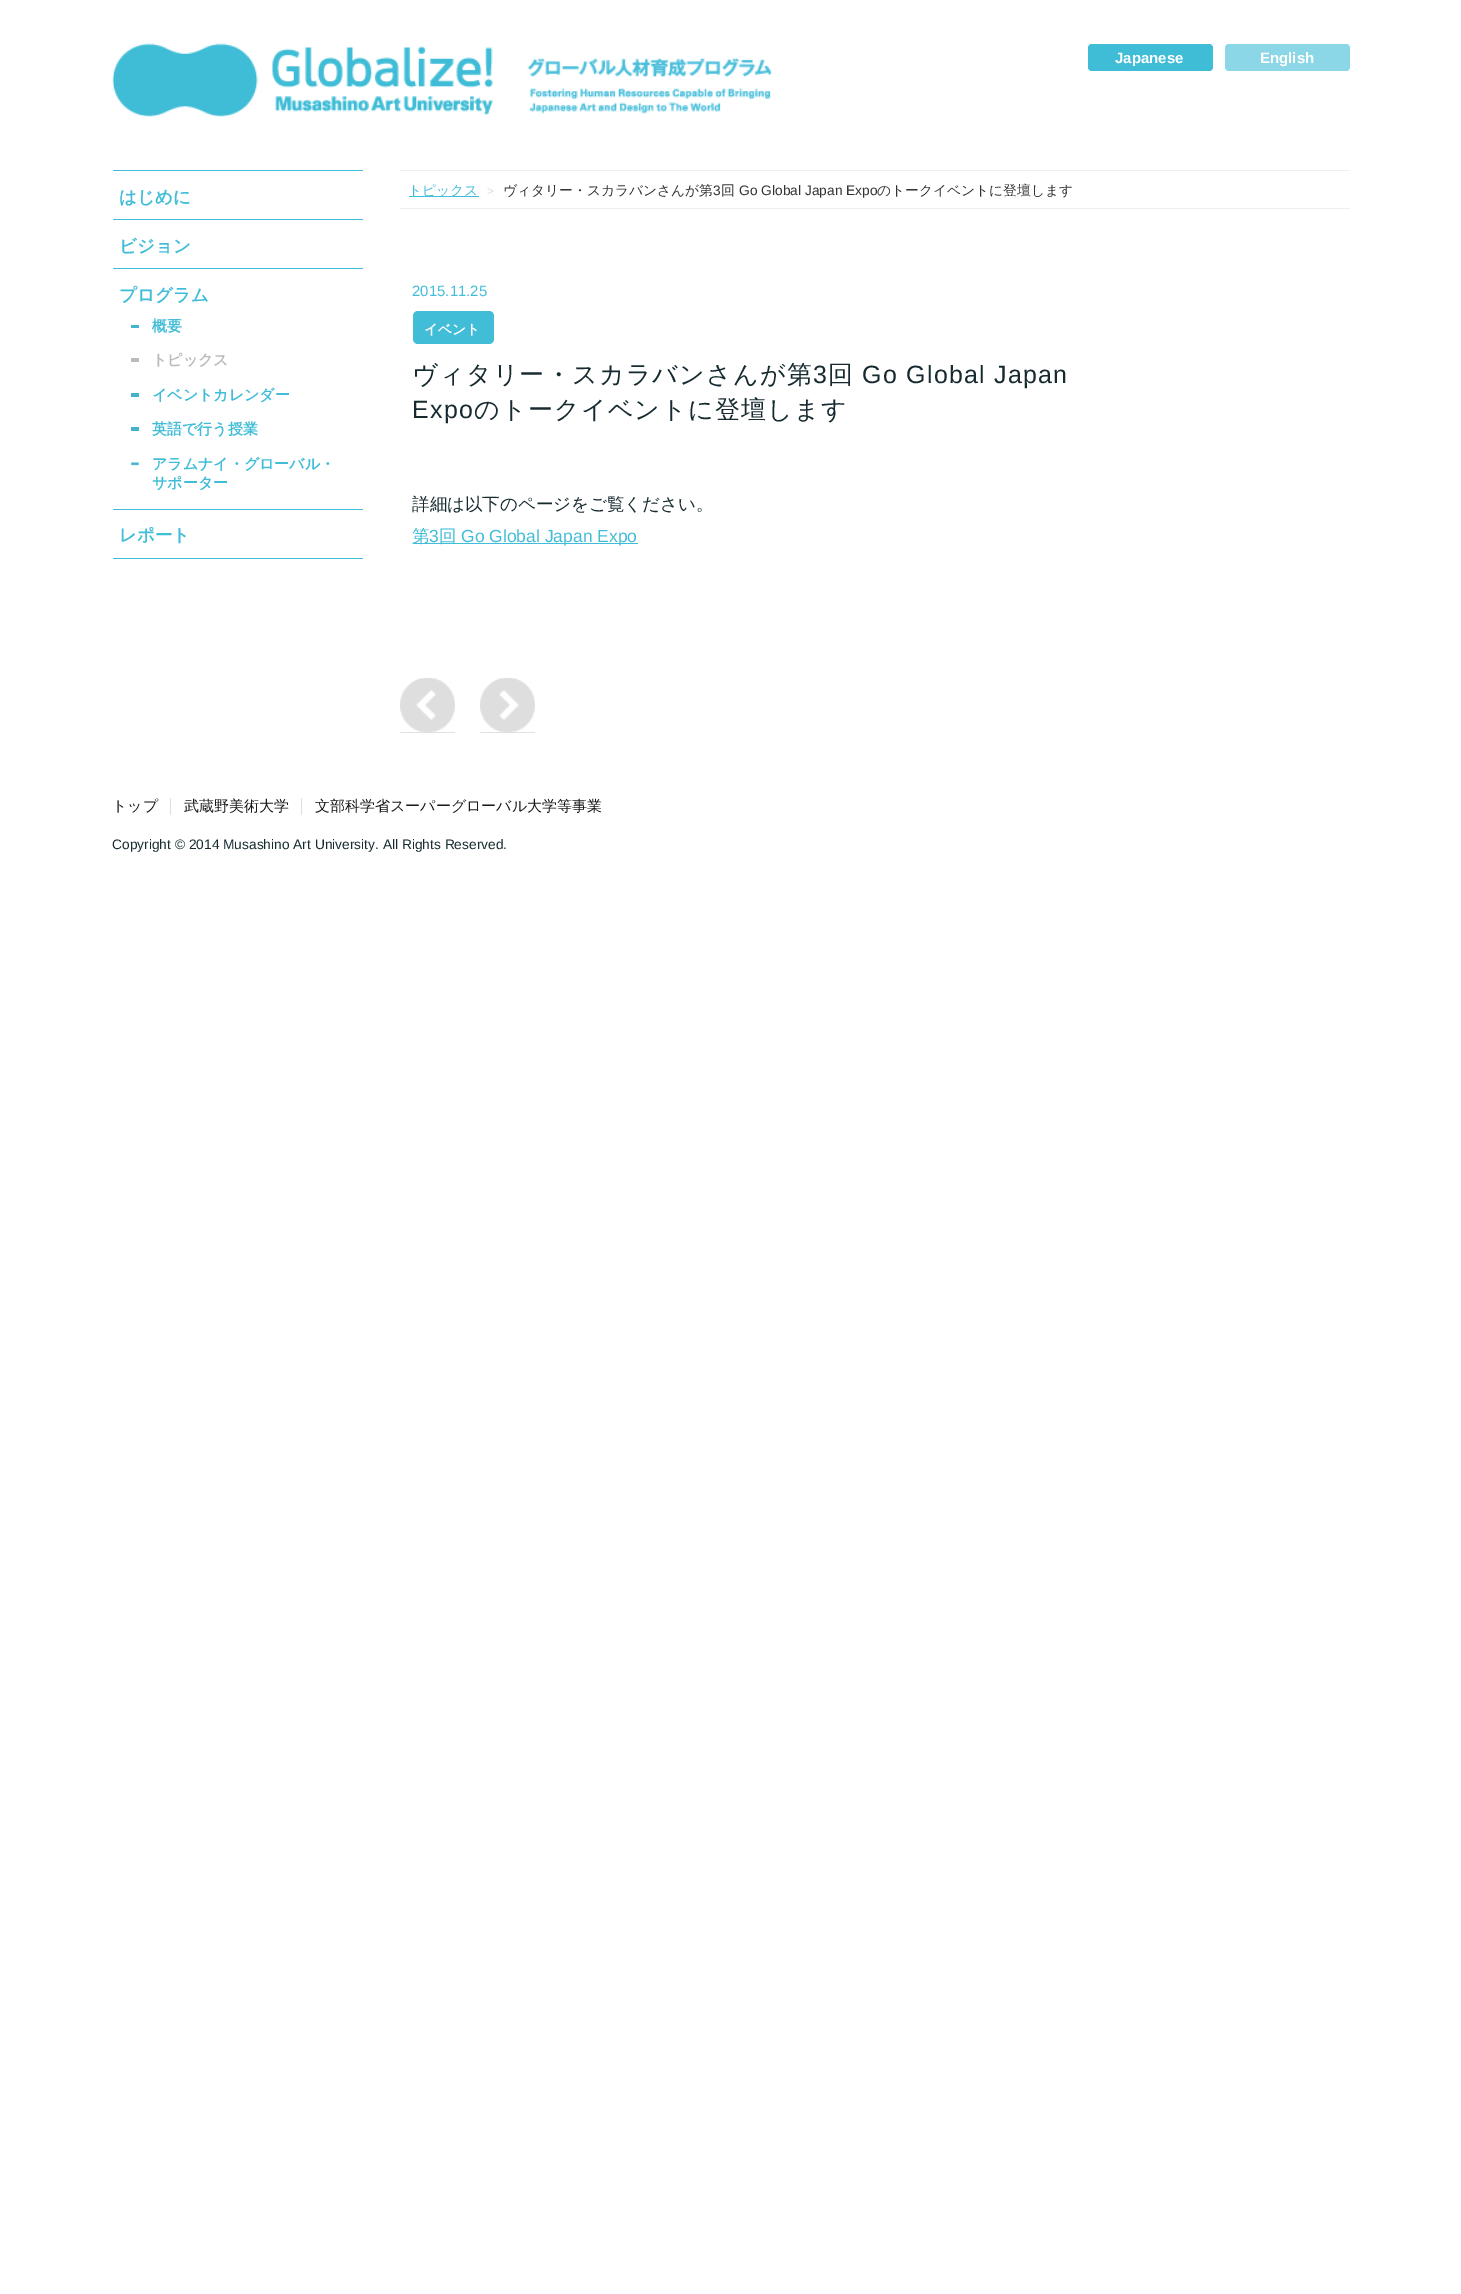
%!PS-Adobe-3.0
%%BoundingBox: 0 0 1461 2294
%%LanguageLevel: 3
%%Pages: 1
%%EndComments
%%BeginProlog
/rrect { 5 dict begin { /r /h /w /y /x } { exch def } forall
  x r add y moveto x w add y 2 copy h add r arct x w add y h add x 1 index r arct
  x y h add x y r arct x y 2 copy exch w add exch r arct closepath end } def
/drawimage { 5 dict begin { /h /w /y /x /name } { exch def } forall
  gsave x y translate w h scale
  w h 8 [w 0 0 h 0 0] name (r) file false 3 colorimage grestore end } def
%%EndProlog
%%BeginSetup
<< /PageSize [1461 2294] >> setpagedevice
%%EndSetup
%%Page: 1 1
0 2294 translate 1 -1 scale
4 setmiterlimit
1 setgray
0 0 1461 2294 rectfill
(images/1.raw) 112 43 660 74 drawimage
0.247 0.741 0.843 setrgbcolor
1088 44 125 27 4 rrect fill
0.549 0.843 0.906 setrgbcolor
1225 44 125 27 4 rrect fill
0.259 0.741 0.847 setrgbcolor
113 558 250 1 rectfill
113 170 250 1 rectfill
113 219 250 1 rectfill
113 268 250 1 rectfill
0.267 0.702 0.8 setrgbcolor
131 325 8 3 rectfill
0.733 setgray
131 358 8 4 rectfill
0.267 0.702 0.8 setrgbcolor
131 393 8 4 rectfill
131 427 8 4 rectfill
(images/2.raw) 131 462 8 4 drawimage
0.259 0.741 0.847 setrgbcolor
113 509 250 1 rectfill
0.937 setgray
400 170 950 1 rectfill
400 208 950 1 rectfill
0.259 0.741 0.847 setrgbcolor
409 196 70 1 rectfill
413 311 81 33 5 rrect fill
413 543 225 1 rectfill
0.871 setgray
400 678 55 55 rectfill
(images/3.raw) 400 678 55 55 drawimage
480 678 55 55 rectfill
(images/4.raw) 480 678 55 55 drawimage
170 798 1 17 rectfill
301 798 1 17 rectfill
/LiberationSans-Bold [15 0 0 -15 0 0] selectfont
1 setgray
1115 63 moveto (Japanese) show
1260 63 moveto (English) show
/WenQuanYiZenHei-Bold [17.5 0 0 -17.5 0 0] selectfont
0.259 0.741 0.847 setrgbcolor
119 203 moveto (はじめに) show
119 252 moveto (ビジョン) show
119 301 moveto (プログラム) show
/WenQuanYiZenHei-Bold [15 0 0 -15 0 0] selectfont
152 331 moveto (概要) show
0.733 setgray
152 365 moveto (トピックス) show
0.259 0.741 0.847 setrgbcolor
152 400 moveto (イベントカレンダー) show
152 434 moveto (英語で行う授業) show
152 469 moveto (アラムナイ・グローバル・) show
152 488 moveto (サポーター) show
/WenQuanYiZenHei-Bold [17.5 0 0 -17.5 0 0] selectfont
119 541 moveto (レポート) show
/WenQuanYiZenHei-Medium [13.75 0 0 -13.75 0 0] selectfont
408 195 moveto (トピックス) show
/LiberationSans-Regular [12 0 0 -12 0 0] selectfont
0.871 setgray
487 195 moveto (>) show
/WenQuanYiZenHei-Medium [13.75 0 0 -13.75 0 0] selectfont
0.2 setgray
503 195 moveto (ヴィタリー・スカラバンさんが第) show
/LiberationSans-Regular [13.75 0 0 -13.75 0 0] selectfont
713 195 moveto (3) show
/WenQuanYiZenHei-Medium [13.75 0 0 -13.75 0 0] selectfont
721 195 moveto (回) show
/LiberationSans-Regular [13.75 0 0 -13.75 0 0] selectfont
739 195 moveto (Go Global Japan Expo) show
/WenQuanYiZenHei-Medium [13.75 0 0 -13.75 0 0] selectfont
877 195 moveto (のトークイベントに登壇します) show
/LiberationSans-Regular [15 0 0 -15 0 0] selectfont
0.259 0.741 0.847 setrgbcolor
412 296 moveto (2015.11.25) show
/WenQuanYiZenHei-Bold [13.75 0 0 -13.75 0 0] selectfont
1 setgray
424 334 moveto (イベント) show
/WenQuanYiZenHei-Medium [25 0 0 -25 0 0] selectfont
0.086 0.165 0.184 setrgbcolor
412 383 moveto 1.25 0 (ヴィタリー・スカラバンさんが第) ashow
/LiberationSans-Regular [25 0 0 -25 0 0] selectfont
813 383 moveto 1.25 0 (3) ashow
/WenQuanYiZenHei-Medium [25 0 0 -25 0 0] selectfont
828 383 moveto 1.25 0 (回) ashow
/LiberationSans-Regular [25 0 0 -25 0 0] selectfont
862 383 moveto 1.25 0 (Go Global Japan) ashow
412 418 moveto 1.25 0 (Expo) ashow
/WenQuanYiZenHei-Medium [25 0 0 -25 0 0] selectfont
474 418 moveto 1.25 0 (のトークイベントに登壇します) ashow
/WenQuanYiZenHei-Medium [17.5 0 0 -17.5 0 0] selectfont
412 510 moveto (詳細は以下のページをご覧ください。) show
0.259 0.741 0.847 setrgbcolor
412 542 moveto (第) show
/LiberationSans-Regular [17.5 0 0 -17.5 0 0] selectfont
429 542 moveto (3) show
/WenQuanYiZenHei-Medium [17.5 0 0 -17.5 0 0] selectfont
439 542 moveto (回) show
/LiberationSans-Regular [17.5 0 0 -17.5 0 0] selectfont
461 542 moveto (Go Global Japan Expo) show
/WenQuanYiZenHei-Medium [15 0 0 -15 0 0] selectfont
0.098 setgray
112 811 moveto (トップ) show
184 811 moveto (武蔵野美術大学) show
315 811 moveto (文部科学省スーパーグローバル大学等事業) show
/LiberationSans-Regular [13.75 0 0 -13.75 0 0] selectfont
0.086 0.165 0.184 setrgbcolor
112 849 moveto (Copyright © 2014 Musashino Art University. All Rights Reserved.) show
showpage
%%EOF
